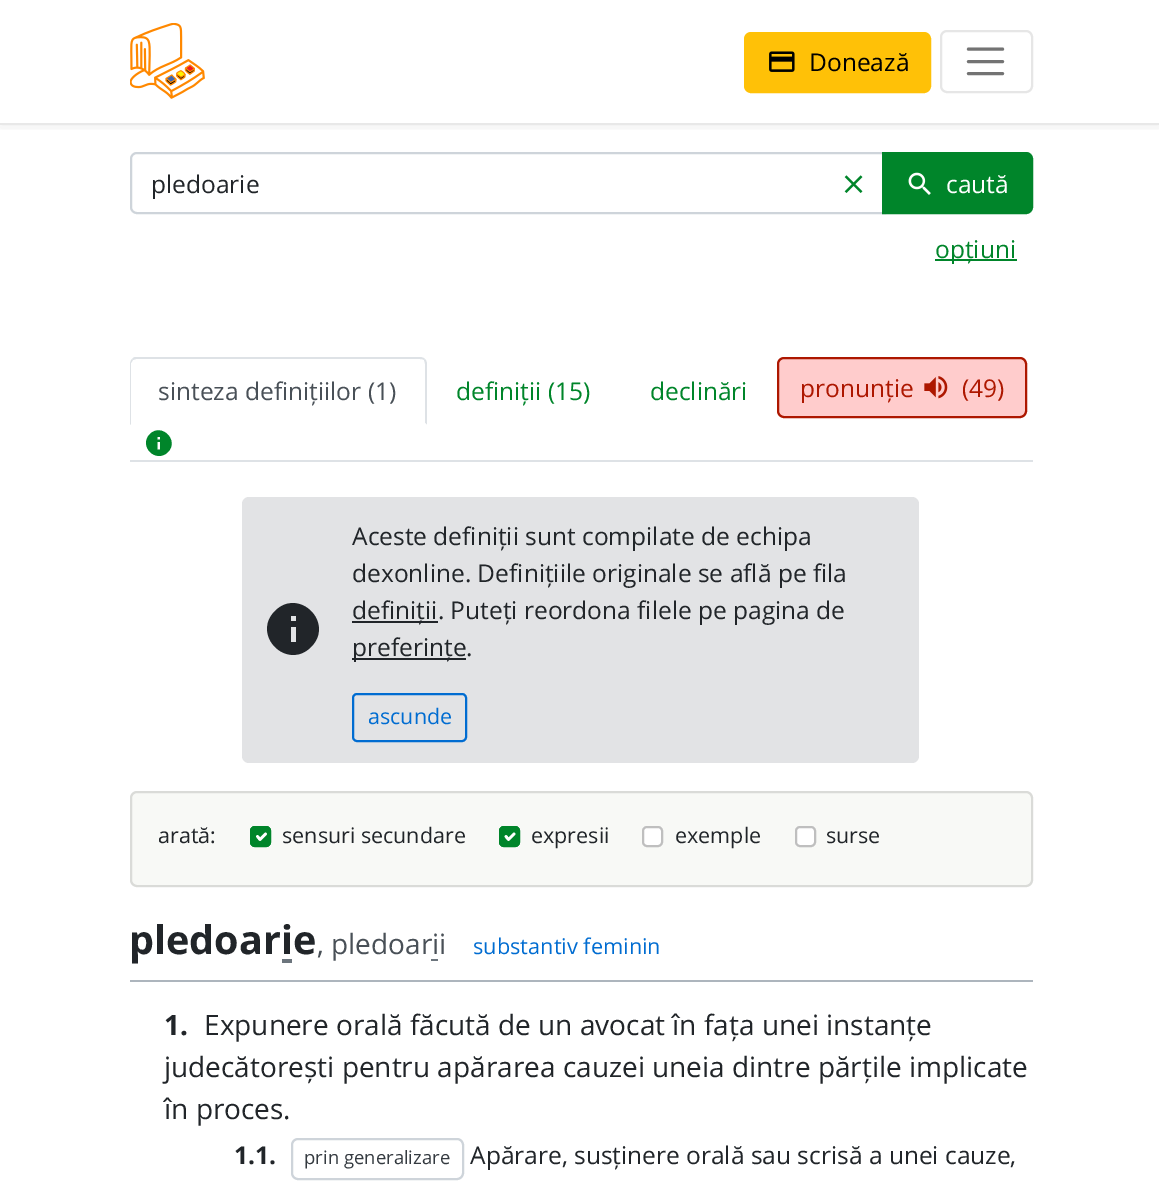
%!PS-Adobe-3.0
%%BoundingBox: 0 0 1159 1194
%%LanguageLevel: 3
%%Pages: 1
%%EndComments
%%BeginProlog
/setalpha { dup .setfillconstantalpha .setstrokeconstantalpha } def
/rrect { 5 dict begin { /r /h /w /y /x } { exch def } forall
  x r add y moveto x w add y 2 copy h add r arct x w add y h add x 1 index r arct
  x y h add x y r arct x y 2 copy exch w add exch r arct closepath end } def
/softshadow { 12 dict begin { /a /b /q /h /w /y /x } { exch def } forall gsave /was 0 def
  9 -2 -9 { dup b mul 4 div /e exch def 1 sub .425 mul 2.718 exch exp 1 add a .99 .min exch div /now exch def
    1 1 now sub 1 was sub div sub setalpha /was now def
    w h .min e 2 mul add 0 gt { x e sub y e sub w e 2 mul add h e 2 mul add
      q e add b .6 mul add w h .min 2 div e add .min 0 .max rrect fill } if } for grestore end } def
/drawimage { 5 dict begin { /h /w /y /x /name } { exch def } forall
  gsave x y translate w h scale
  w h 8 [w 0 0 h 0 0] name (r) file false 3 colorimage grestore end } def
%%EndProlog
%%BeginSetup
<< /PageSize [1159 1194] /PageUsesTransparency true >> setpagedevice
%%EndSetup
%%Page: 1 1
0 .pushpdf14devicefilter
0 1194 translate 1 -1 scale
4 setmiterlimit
1 setgray
0 0 1159 1194 rectfill
gsave
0 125 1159 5 rectclip
0 setgray
0 0 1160 124 0 7 0.1 softshadow
grestore
0.91 setgray
0 123 1159 2 rectfill
(images/1.raw) 130 23 75 76 drawimage
1 0.757 0.027 setrgbcolor
745 33 185 59 6 rrect gsave fill grestore
2 setlinewidth
stroke
(images/2.raw) 769 51 26 21 drawimage
0.902 setgray
941 31 91 61 6 rrect stroke
0.451 setgray
3.1 setlinewidth
1 setlinecap
newpath 968.5 49 moveto 1002.5 49 lineto 968.5 61.5 moveto 1002.5 61.5 lineto 968.5 73.5 moveto 1002.5 73.5 lineto stroke
0.808 0.831 0.855 setrgbcolor
2 setlinewidth
0 setlinecap
newpath 137 153 moveto 885 153 lineto 885 213 lineto 137 213 lineto 133.5 213 131 210.5 131 207 curveto 131 159 lineto 131 155.5 133.5 153 137 153 curveto closepath stroke
(images/3.raw) 844 175 19 18 drawimage
0 0.522 0.165 setrgbcolor
newpath 883 153 moveto 1026 153 lineto 1029.5 153 1032 155.5 1032 159 curveto 1032 207 lineto 1032 210.5 1029.5 213 1026 213 curveto 883 213 lineto closepath gsave fill grestore
stroke
(images/4.raw) 908 172 23 23 drawimage
935 259 82 2 rectfill
0.871 0.886 0.902 setrgbcolor
130 460 903 2 rectfill
newpath 136 357 moveto 134 357 133 358 132 359 curveto 133 360 lineto 136 359 lineto 420 359 lineto 421 359 423 359 424 360 curveto 425 359 lineto 424 358 422 357 420 357 curveto closepath fill
newpath 427 425 moveto 427 364 lineto 427 362 426 360 425 359 curveto 424 360 lineto 424 361 425 362 425 364 curveto 425 423 lineto closepath fill
1 setgray
newpath 427 425 moveto 130 425 lineto 131 424 lineto 425 424 lineto 425 423 lineto closepath fill
0.871 0.886 0.902 setrgbcolor
newpath 132 359 moveto 131 360 130 362 130 364 curveto 130 425 lineto 131 424 lineto 131 363 lineto 133 360 lineto closepath fill
1 0.8 0.8 setrgbcolor
778 358 248 59 6 rrect gsave fill grestore
0.678 0.09 0 setrgbcolor
stroke
(images/5.raw) 924 376 24 23 drawimage
0 0.522 0.165 setrgbcolor
newpath 160 439.5 moveto 160 437 lineto 157.5 437 lineto 157.5 439.5 lineto closepath 160 449.5 moveto 160 442 lineto 157.5 442 lineto 157.5 449.5 lineto closepath 150 434 moveto 161.5 422.5 179.5 440.5 168 452 curveto 156 464 138 446 150 434 curveto closepath fill
0.886 0.89 0.898 setrgbcolor
242 497 677 266 7 rrect fill
0.129 0.145 0.161 setrgbcolor
newpath 296 621 moveto 296 616 lineto 291 616 lineto 291 621 lineto closepath 296 642 moveto 296 627 lineto 291 627 lineto 291 642 lineto closepath 275 611 moveto 299 587 335 623 311 647 curveto 287 671 251 635 275 611 curveto closepath fill
352 621 86 2 rectfill
352 658 114 2 rectfill
0 0.424 0.82 setrgbcolor
353 694 113 47 4 rrect stroke
0.973 0.976 0.965 setrgbcolor
130 791 903 96 7 rrect fill
0.12 setalpha
0 setgray
131 792 901 94 6 rrect stroke
1 setalpha
0 0.522 0.165 setrgbcolor
250 826 21 21 5 rrect fill
1 setgray
2.7 setlinewidth
1 setlinecap
1 setlinejoin
newpath 257.5 836.5 moveto 260 839.5 lineto 265.5 834 lineto stroke
0 0.522 0.165 setrgbcolor
2 setlinewidth
0 setlinecap
0 setlinejoin
251 827 19 19 4 rrect stroke
499 826 21 21 5 rrect fill
1 setgray
2.7 setlinewidth
1 setlinecap
1 setlinejoin
newpath 506 836.5 moveto 508.5 839.5 lineto 514 834 lineto stroke
0 0.522 0.165 setrgbcolor
2 setlinewidth
0 setlinecap
0 setlinejoin
500 827 19 19 4 rrect stroke
1 setgray
642 826 21 21 5 rrect fill
0.25 setalpha
0 setgray
643 827 19 19 4 rrect stroke
1 setalpha
1 setgray
795 826 21 21 5 rrect fill
0.25 setalpha
0 setgray
796 827 19 19 4 rrect stroke
1 setalpha
0.678 0.71 0.741 setrgbcolor
130 980 903 2 rectfill
0.808 0.831 0.855 setrgbcolor
292 1139 171 40 6 rrect stroke
/OpenSans-Regular [24.5 0 0 -24.5 0 0] selectfont
0 setgray
809 71 moveto (Donează) show
0.129 0.145 0.161 setrgbcolor
151 193 moveto (pledoarie) show
1 setgray
946 193 moveto (caută) show
0 0.522 0.165 setrgbcolor
935 258 moveto (opțiuni) show
0.286 0.314 0.341 setrgbcolor
158 400 moveto (sinteza definițiilor \(1\)) show
0 0.522 0.165 setrgbcolor
456 400 moveto (definiții \(15\)) show
650 400 moveto (declinări) show
0.678 0.09 0 setrgbcolor
800 397 moveto (pronunție) show
962 397 moveto (\(49\)) show
0.129 0.145 0.161 setrgbcolor
352 545 moveto (Aceste definiții sunt compilate de echipa) show
352 582 moveto (dexonline. Definițiile originale se află pe fila) show
352 619 moveto (definiții. Puteți reordona filele pe pagina de) show
352 656 moveto (preferințe.) show
/OpenSans-Regular [21.5 0 0 -21.5 0 0] selectfont
0 0.424 0.82 setrgbcolor
368 724 moveto (ascunde) show
0.129 0.145 0.161 setrgbcolor
158 843 moveto (arată:) show
282 843 moveto (sensuri secundare) show
531 843 moveto (expresii) show
675 843 moveto (exemple) show
826 843 moveto (surse) show
/OpenSans-Bold [39.5 0 0 -39.5 0 0] selectfont
129 954 moveto (pledoarie) show
/OpenSans-Regular [28 0 0 -28 0 0] selectfont
0.286 0.314 0.341 setrgbcolor
317 954 moveto (, pledoarii) show
0.424 0.459 0.49 setrgbcolor
431 959 7 2 rectfill
/OpenSans-Regular [21.75 0 0 -21.75 0 0] selectfont
0 0.424 0.82 setrgbcolor
473 954 moveto (substantiv feminin) show
0.424 0.459 0.49 setrgbcolor
282 959 10 4 rectfill
/OpenSans-Bold [28 0 0 -28 0 0] selectfont
0.129 0.145 0.161 setrgbcolor
164 1035 moveto (1.) show
/OpenSans-Regular [28 0 0 -28 0 0] selectfont
204 1035 moveto (Expunere orală făcută de un avocat în fața unei instanțe) show
164 1077 moveto (judecătorești pentru apărarea cauzei uneia dintre părțile implicate) show
164 1119 moveto (în proces.) show
/OpenSans-Bold [24.5 0 0 -24.5 0 0] selectfont
234 1164 moveto (1.1.) show
/OpenSans-Regular [18.5 0 0 -18.5 0 0] selectfont
0.204 0.227 0.251 setrgbcolor
304 1164 moveto (prin generalizare) show
/OpenSans-Regular [24.5 0 0 -24.5 0 0] selectfont
0.129 0.145 0.161 setrgbcolor
470 1164 moveto (Apărare, susținere orală sau scrisă a unei cauze,) show
.poppdf14devicefilter showpage
%%EOF
